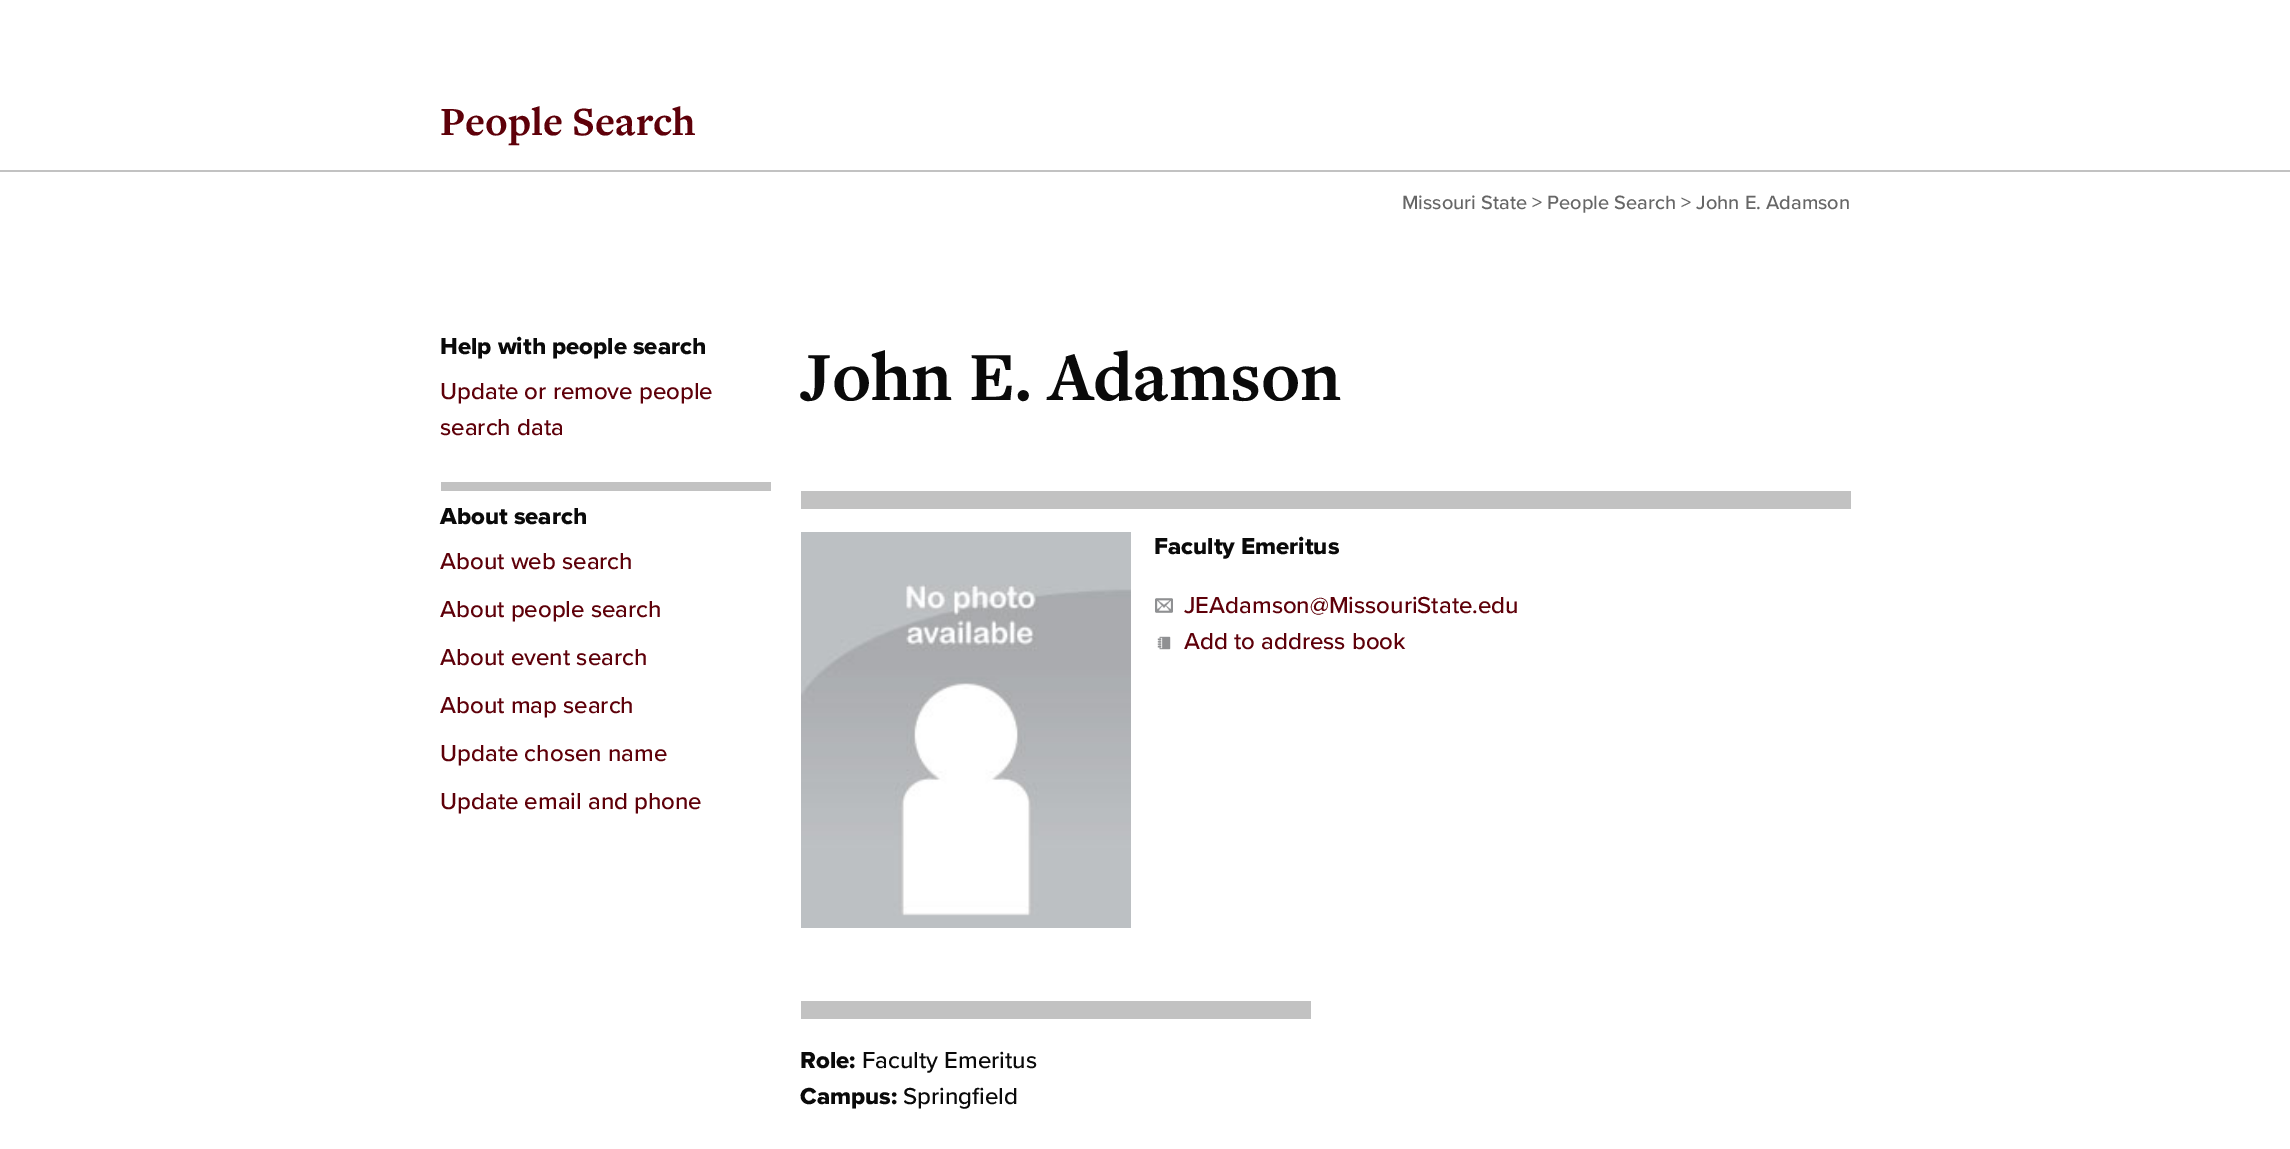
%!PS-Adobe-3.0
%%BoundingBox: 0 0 2290 1149
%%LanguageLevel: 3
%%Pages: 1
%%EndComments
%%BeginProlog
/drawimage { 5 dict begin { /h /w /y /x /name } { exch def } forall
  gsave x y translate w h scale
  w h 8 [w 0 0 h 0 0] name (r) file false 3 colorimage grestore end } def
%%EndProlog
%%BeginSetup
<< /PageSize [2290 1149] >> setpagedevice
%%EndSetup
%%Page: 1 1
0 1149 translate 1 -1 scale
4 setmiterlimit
1 setgray
0 0 2290 1149 rectfill
0.761 setgray
0 170 2290 2 rectfill
441 482 330 9 rectfill
801 491 1050 18 rectfill
(images/1.raw) 801 532 330 396 drawimage
(images/2.raw) 1155 598 18 15 drawimage
(images/3.raw) 1157 636 14 14 drawimage
801 1001 510 18 rectfill
/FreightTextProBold-Bold [41.5 0 0 -41.5 0 0] selectfont
0.369 0 0.035 setrgbcolor
440 135 moveto (People Search) show
/ProximaNova-Medium [20 0 0 -20 0 0] selectfont
0.4 setgray
1402 209 moveto (Missouri State > People Search > John E. Adamson) show
/ProximaNova-ExtraBold [24 0 0 -24 0 0] selectfont
0.039 setgray
440 354 moveto (Help with people search) show
/ProximaNova-Medium [24 0 0 -24 0 0] selectfont
0.369 0 0.035 setrgbcolor
440 399 moveto (Update or remove people) show
440 435 moveto (search data) show
/ProximaNova-ExtraBold [24 0 0 -24 0 0] selectfont
0.039 setgray
440 524 moveto (About search) show
/ProximaNova-Medium [24 0 0 -24 0 0] selectfont
0.369 0 0.035 setrgbcolor
440 569 moveto (About web search) show
440 617 moveto (About people search) show
440 665 moveto (About event search) show
440 713 moveto (About map search) show
440 761 moveto (Update chosen name) show
440 809 moveto (Update email and phone) show
/FreightTextProBold-Bold [71.75 0 0 -71.75 0 0] selectfont
0.039 setgray
800 400 moveto (John E. Adamson) show
/ProximaNova-ExtraBold [24 0 0 -24 0 0] selectfont
1154 554 moveto (Faculty Emeritus) show
/ProximaNova-Medium [24 0 0 -24 0 0] selectfont
0.369 0 0.035 setrgbcolor
1184 613 moveto (JEAdamson@MissouriState.edu) show
1184 649 moveto (Add to address book) show
/ProximaNova-ExtraBold [24 0 0 -24 0 0] selectfont
0.039 setgray
800 1068 moveto (Role:) show
/ProximaNova-Medium [24 0 0 -24 0 0] selectfont
862 1068 moveto (Faculty Emeritus) show
/ProximaNova-ExtraBold [24 0 0 -24 0 0] selectfont
800 1104 moveto (Campus:) show
/ProximaNova-Medium [24 0 0 -24 0 0] selectfont
903 1104 moveto (Springfield) show
showpage
%%EOF
